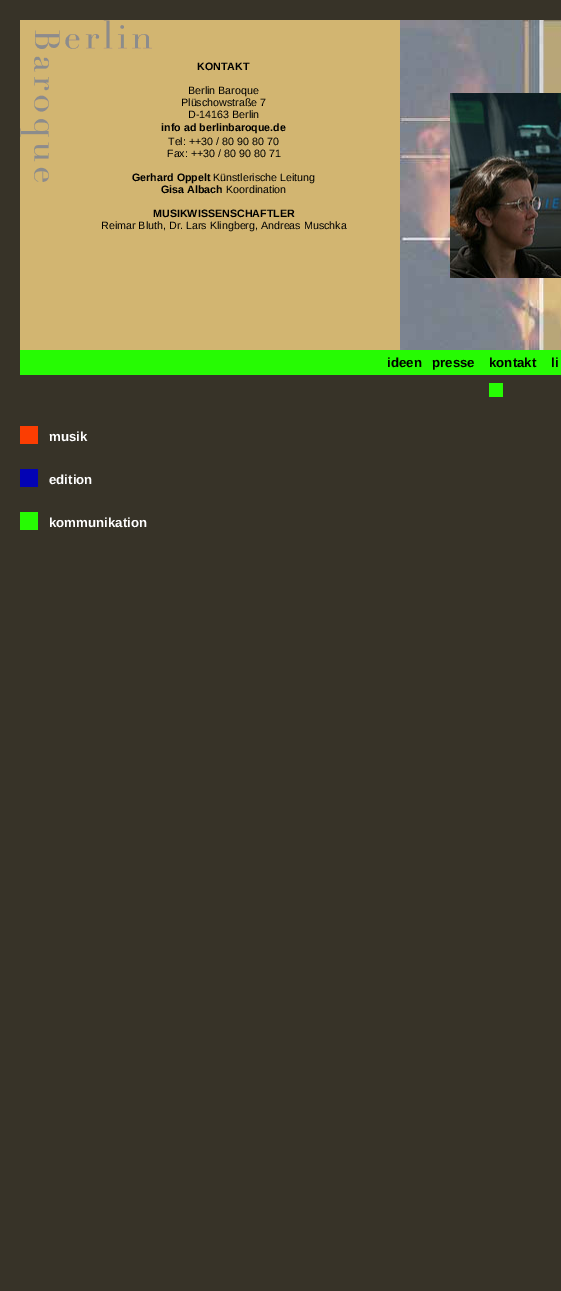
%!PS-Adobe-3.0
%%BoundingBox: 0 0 561 1291
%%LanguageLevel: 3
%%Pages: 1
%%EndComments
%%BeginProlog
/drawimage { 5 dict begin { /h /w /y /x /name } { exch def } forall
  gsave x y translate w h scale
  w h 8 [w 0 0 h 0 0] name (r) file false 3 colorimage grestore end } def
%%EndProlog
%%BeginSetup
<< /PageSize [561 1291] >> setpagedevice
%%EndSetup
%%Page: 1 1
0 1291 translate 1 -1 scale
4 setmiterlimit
0.216 0.2 0.157 setrgbcolor
0 0 561 1291 rectfill
0.824 0.71 0.443 setrgbcolor
20 20 380 29 rectfill
(images/1.raw) 35 20 117 29 drawimage
(images/2.raw) 400 20 161 330 drawimage
(images/3.raw) 450 93 111 185 drawimage
20 49 380 301 rectfill
(images/4.raw) 20 56 29 126 drawimage
0.149 0.984 0.012 setrgbcolor
20 350 541 25 rectfill
489 383 14 14 rectfill
0.984 0.239 0.008 setrgbcolor
20 426 18 18 rectfill
0.012 0.012 0.706 setrgbcolor
20 469 18 18 rectfill
0.149 0.984 0.012 setrgbcolor
20 512 18 18 rectfill
/LiberationSans-Bold [10.7 0 0 -10.7 0 0] selectfont
0 setgray
197 70 moveto (KONTAKT) show
/LiberationSans-Regular [10.7 0 0 -10.7 0 0] selectfont
188 94 moveto (Berlin Baroque) show
181 106 moveto (Plüschowstraße 7) show
188 118 moveto (D-14163 Berlin) show
/LiberationSans-Bold [10.7 0 0 -10.7 0 0] selectfont
161 131 moveto (info ad berlinbaroque.de) show
/LiberationSans-Regular [10.7 0 0 -10.7 0 0] selectfont
168 145 moveto (Tel: ++30 / 80 90 80 70) show
167 157 moveto (Fax: ++30 / 80 90 80 71) show
/LiberationSans-Bold [10.7 0 0 -10.7 0 0] selectfont
132 181 moveto (Gerhard Oppelt) show
/LiberationSans-Regular [10.7 0 0 -10.7 0 0] selectfont
213 181 moveto (Künstlerische Leitung) show
/LiberationSans-Bold [10.7 0 0 -10.7 0 0] selectfont
161 193 moveto (Gisa Albach) show
/LiberationSans-Regular [10.7 0 0 -10.7 0 0] selectfont
226 193 moveto (Koordination) show
/LiberationSans-Bold [10.7 0 0 -10.7 0 0] selectfont
153 217 moveto (MUSIKWISSENSCHAFTLER) show
/LiberationSans-Regular [10.7 0 0 -10.7 0 0] selectfont
101 229 moveto (Reimar Bluth, Dr. Lars Klingberg, Andreas Muschka) show
/LiberationSans-Bold [13.25 0 0 -13.25 0 0] selectfont
387 367 moveto (ideen) show
432 367 moveto (presse) show
489 367 moveto (kontakt) show
551 367 moveto (li) show
1 setgray
49 441 moveto (musik) show
49 484 moveto (edition) show
49 527 moveto (kommunikation) show
showpage
%%EOF
